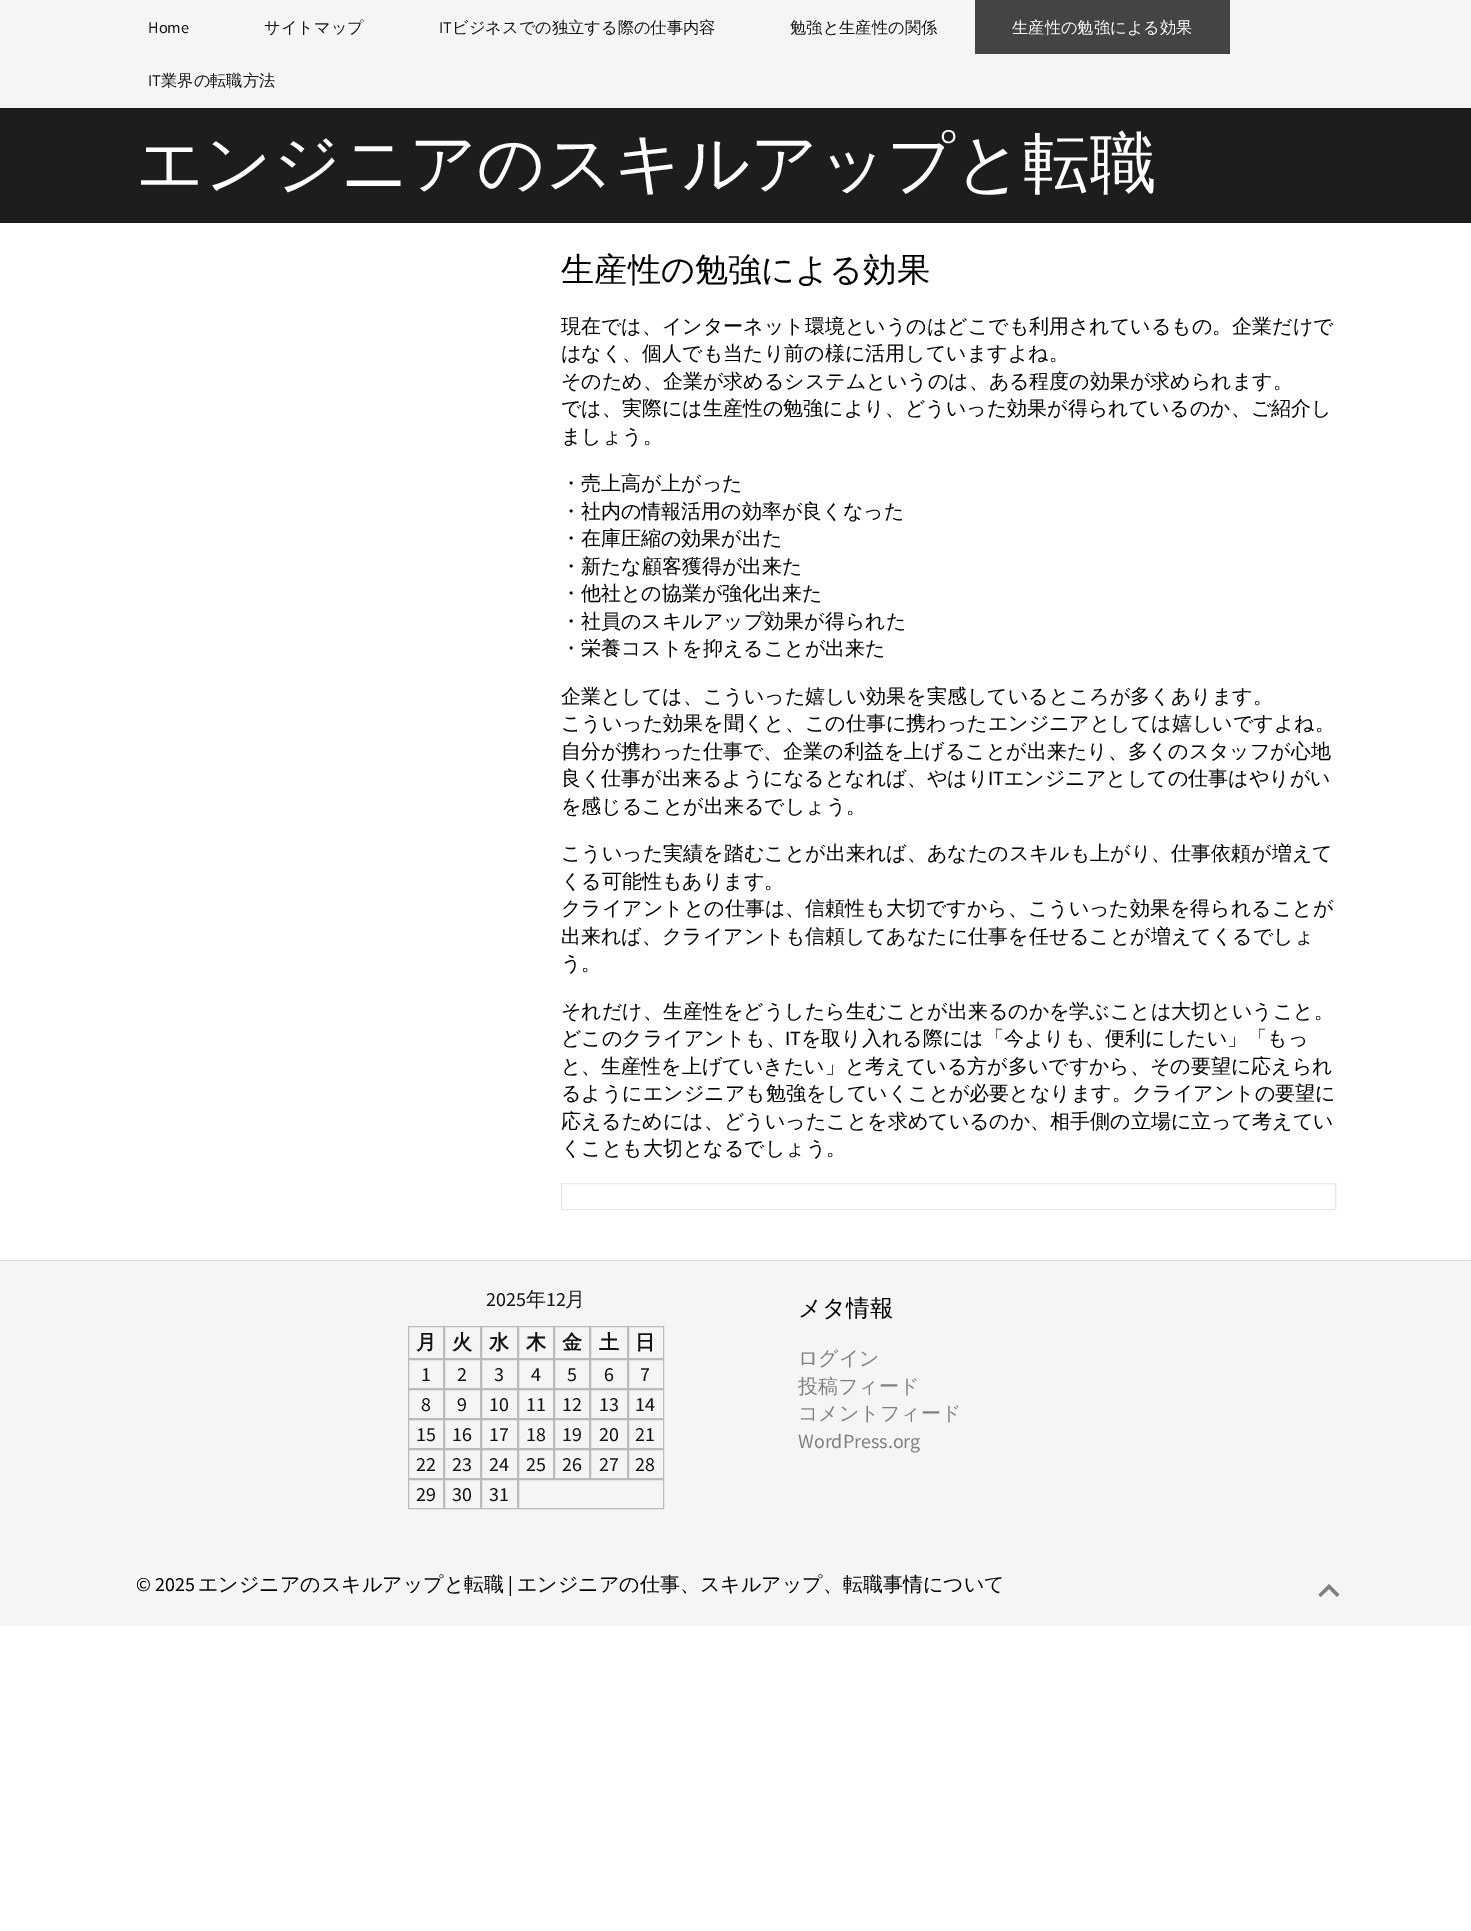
%!PS-Adobe-3.0
%%BoundingBox: 0 0 1471 1931
%%LanguageLevel: 3
%%Pages: 1
%%EndComments
%%BeginProlog
%%EndProlog
%%BeginSetup
<< /PageSize [1471 1931] >> setpagedevice
%%EndSetup
%%Page: 1 1
0 1931 translate 1 -1 scale
4 setmiterlimit
1 setgray
0 0 1471 1931 rectfill
0.961 setgray
0 0 1471 108 rectfill
0.267 setgray
975 0 255 54 rectfill
0.114 setgray
0 108 1471 115 rectfill
0.906 setgray
561.5 1183.5 774 26 rectstroke
0.961 setgray
0 1261 1471 365 rectfill
0.867 setgray
0 1260 1471 1 rectfill
0.733 setgray
408.5 1326.5 35 32 rectstroke
444.5 1326.5 36 32 rectstroke
481.5 1326.5 36 32 rectstroke
518.5 1326.5 35 32 rectstroke
554.5 1326.5 35 32 rectstroke
590.5 1326.5 37 32 rectstroke
628.5 1326.5 35 32 rectstroke
408.5 1359.5 35 29 rectstroke
444.5 1359.5 36 29 rectstroke
481.5 1359.5 36 29 rectstroke
518.5 1359.5 35 29 rectstroke
554.5 1359.5 35 29 rectstroke
590.5 1359.5 37 29 rectstroke
628.5 1359.5 35 29 rectstroke
408.5 1389.5 35 29 rectstroke
444.5 1389.5 36 29 rectstroke
481.5 1389.5 36 29 rectstroke
518.5 1389.5 35 29 rectstroke
554.5 1389.5 35 29 rectstroke
590.5 1389.5 37 29 rectstroke
628.5 1389.5 35 29 rectstroke
408.5 1419.5 35 29 rectstroke
444.5 1419.5 36 29 rectstroke
481.5 1419.5 36 29 rectstroke
518.5 1419.5 35 29 rectstroke
554.5 1419.5 35 29 rectstroke
590.5 1419.5 37 29 rectstroke
628.5 1419.5 35 29 rectstroke
408.5 1449.5 35 29 rectstroke
444.5 1449.5 36 29 rectstroke
481.5 1449.5 36 29 rectstroke
518.5 1449.5 35 29 rectstroke
554.5 1449.5 35 29 rectstroke
590.5 1449.5 37 29 rectstroke
628.5 1449.5 35 29 rectstroke
408.5 1479.5 35 29 rectstroke
444.5 1479.5 36 29 rectstroke
481.5 1479.5 36 29 rectstroke
518.5 1479.5 145 29 rectstroke
0.502 setgray
newpath 1318.5 1594.5 moveto 1329 1584 lineto 1339.5 1594.5 lineto 1337 1597 lineto 1329 1589 lineto 1320.5 1597 lineto closepath fill
/SourceSansPro-Regular [16.25 0 0 -16.25 0 0] selectfont
0.078 setgray
148 33 moveto (Home) show
/WenQuanYiZenHei-Medium [16.25 0 0 -16.25 0 0] selectfont
264 33 moveto (サイトマップ) show
/SourceSansPro-Regular [16.25 0 0 -16.25 0 0] selectfont
439 33 moveto (IT) show
/WenQuanYiZenHei-Medium [16.25 0 0 -16.25 0 0] selectfont
452 33 moveto (ビジネスでの独立する際の仕事内容) show
790 33 moveto (勉強と生産性の関係) show
1 setgray
1012 33 moveto (生産性の勉強による効果) show
/SourceSansPro-Regular [16.25 0 0 -16.25 0 0] selectfont
0.078 setgray
148 86 moveto (IT) show
/WenQuanYiZenHei-Medium [16.25 0 0 -16.25 0 0] selectfont
161 86 moveto (業界の転職方法) show
/WenQuanYiZenHei-Medium [66.7 0 0 -66.7 0 0] selectfont
1 setgray
136 186 moveto (エンジニアのスキルアップと転職) show
/WenQuanYiZenHei-Medium [33.25 0 0 -33.25 0 0] selectfont
0 setgray
561 281 moveto (生産性の勉強による効果) show
/WenQuanYiZenHei-Medium [20 0 0 -20 0 0] selectfont
561 333 moveto (現在では、インターネット環境というのはどこでも利用されているもの。企業だけで) show
561 360 moveto (はなく、個人でも当たり前の様に活用していますよね。) show
561 388 moveto (そのため、企業が求めるシステムというのは、ある程度の効果が求められます。) show
561 415 moveto (では、実際には生産性の勉強により、どういった効果が得られているのか、ご紹介し) show
561 443 moveto (ましょう。) show
561 490 moveto (・売上高が上がった) show
561 518 moveto (・社内の情報活用の効率が良くなった) show
561 545 moveto (・在庫圧縮の効果が出た) show
561 573 moveto (・新たな顧客獲得が出来た) show
561 600 moveto (・他社との協業が強化出来た) show
561 628 moveto (・社員のスキルアップ効果が得られた) show
561 655 moveto (・栄養コストを抑えることが出来た) show
561 703 moveto (企業としては、こういった嬉しい効果を実感しているところが多くあります。) show
561 730 moveto (こういった効果を聞くと、この仕事に携わったエンジニアとしては嬉しいですよね。) show
561 758 moveto (自分が携わった仕事で、企業の利益を上げることが出来たり、多くのスタッフが心地) show
561 785 moveto (良く仕事が出来るようになるとなれば、やはり) show
/SourceSansPro-Regular [20 0 0 -20 0 0] selectfont
988 785 moveto (IT) show
/WenQuanYiZenHei-Medium [20 0 0 -20 0 0] selectfont
1004 785 moveto (エンジニアとしての仕事はやりがい) show
561 813 moveto (を感じることが出来るでしょう。) show
561 860 moveto (こういった実績を踏むことが出来れば、あなたのスキルも上がり、仕事依頼が増えて) show
561 888 moveto (くる可能性もあります。) show
561 915 moveto (クライアントとの仕事は、信頼性も大切ですから、こういった効果を得られることが) show
561 943 moveto (出来れば、クライアントも信頼してあなたに仕事を任せることが増えてくるでしょ) show
561 970 moveto (う。) show
561 1018 moveto (それだけ、生産性をどうしたら生むことが出来るのかを学ぶことは大切ということ。) show
561 1045 moveto (どこのクライアントも、) show
/SourceSansPro-Regular [20 0 0 -20 0 0] selectfont
785 1045 moveto (IT) show
/WenQuanYiZenHei-Medium [20 0 0 -20 0 0] selectfont
801 1045 moveto (を取り入れる際には「今よりも、便利にしたい」「もっ) show
561 1073 moveto (と、生産性を上げていきたい」と考えている方が多いですから、その要望に応えられ) show
561 1100 moveto (るようにエンジニアも勉強をしていくことが必要となります。クライアントの要望に) show
561 1128 moveto (応えるためには、どういったことを求めているのか、相手側の立場に立って考えてい) show
561 1155 moveto (くことも大切となるでしょう。) show
/SourceSansPro-Regular [20 0 0 -20 0 0] selectfont
0.078 setgray
486 1306 moveto (2025) show
/WenQuanYiZenHei-Medium [20 0 0 -20 0 0] selectfont
526 1306 moveto (年) show
/SourceSansPro-Regular [20 0 0 -20 0 0] selectfont
546 1306 moveto (12) show
/WenQuanYiZenHei-Medium [20 0 0 -20 0 0] selectfont
565 1306 moveto (月) show
/WenQuanYiZenHei-Bold [20 0 0 -20 0 0] selectfont
416 1349 moveto (月) show
452 1349 moveto (火) show
489 1349 moveto (水) show
526 1349 moveto (木) show
562 1349 moveto (金) show
599 1349 moveto (土) show
635 1349 moveto (日) show
/SourceSansPro-Regular [20 0 0 -20 0 0] selectfont
421 1381 moveto (1) show
457 1381 moveto (2) show
494 1381 moveto (3) show
531 1381 moveto (4) show
567 1381 moveto (5) show
604 1381 moveto (6) show
640 1381 moveto (7) show
421 1411 moveto (8) show
457 1411 moveto (9) show
489 1411 moveto (10) show
526 1411 moveto (11) show
562 1411 moveto (12) show
599 1411 moveto (13) show
635 1411 moveto (14) show
416 1441 moveto (15) show
452 1441 moveto (16) show
489 1441 moveto (17) show
526 1441 moveto (18) show
562 1441 moveto (19) show
599 1441 moveto (20) show
635 1441 moveto (21) show
416 1471 moveto (22) show
452 1471 moveto (23) show
489 1471 moveto (24) show
526 1471 moveto (25) show
562 1471 moveto (26) show
599 1471 moveto (27) show
635 1471 moveto (28) show
416 1501 moveto (29) show
452 1501 moveto (30) show
489 1501 moveto (31) show
/WenQuanYiZenHei-Medium [23.5 0 0 -23.5 0 0] selectfont
0 setgray
798 1316 moveto (メタ情報) show
/WenQuanYiZenHei-Medium [20 0 0 -20 0 0] selectfont
0.502 setgray
798 1365 moveto (ログイン) show
798 1393 moveto (投稿フィード) show
798 1420 moveto (コメントフィード) show
/SourceSansPro-Regular [20 0 0 -20 0 0] selectfont
798 1448 moveto (WordPress.org) show
0 setgray
136 1591 moveto (© 2025) show
/WenQuanYiZenHei-Medium [20 0 0 -20 0 0] selectfont
198 1591 moveto (エンジニアのスキルアップと転職) show
/SourceSansPro-Regular [20 0 0 -20 0 0] selectfont
508 1591 moveto (|) show
/WenQuanYiZenHei-Medium [20 0 0 -20 0 0] selectfont
517 1591 moveto (エンジニアの仕事、スキルアップ、転職事情について) show
showpage
%%EOF
